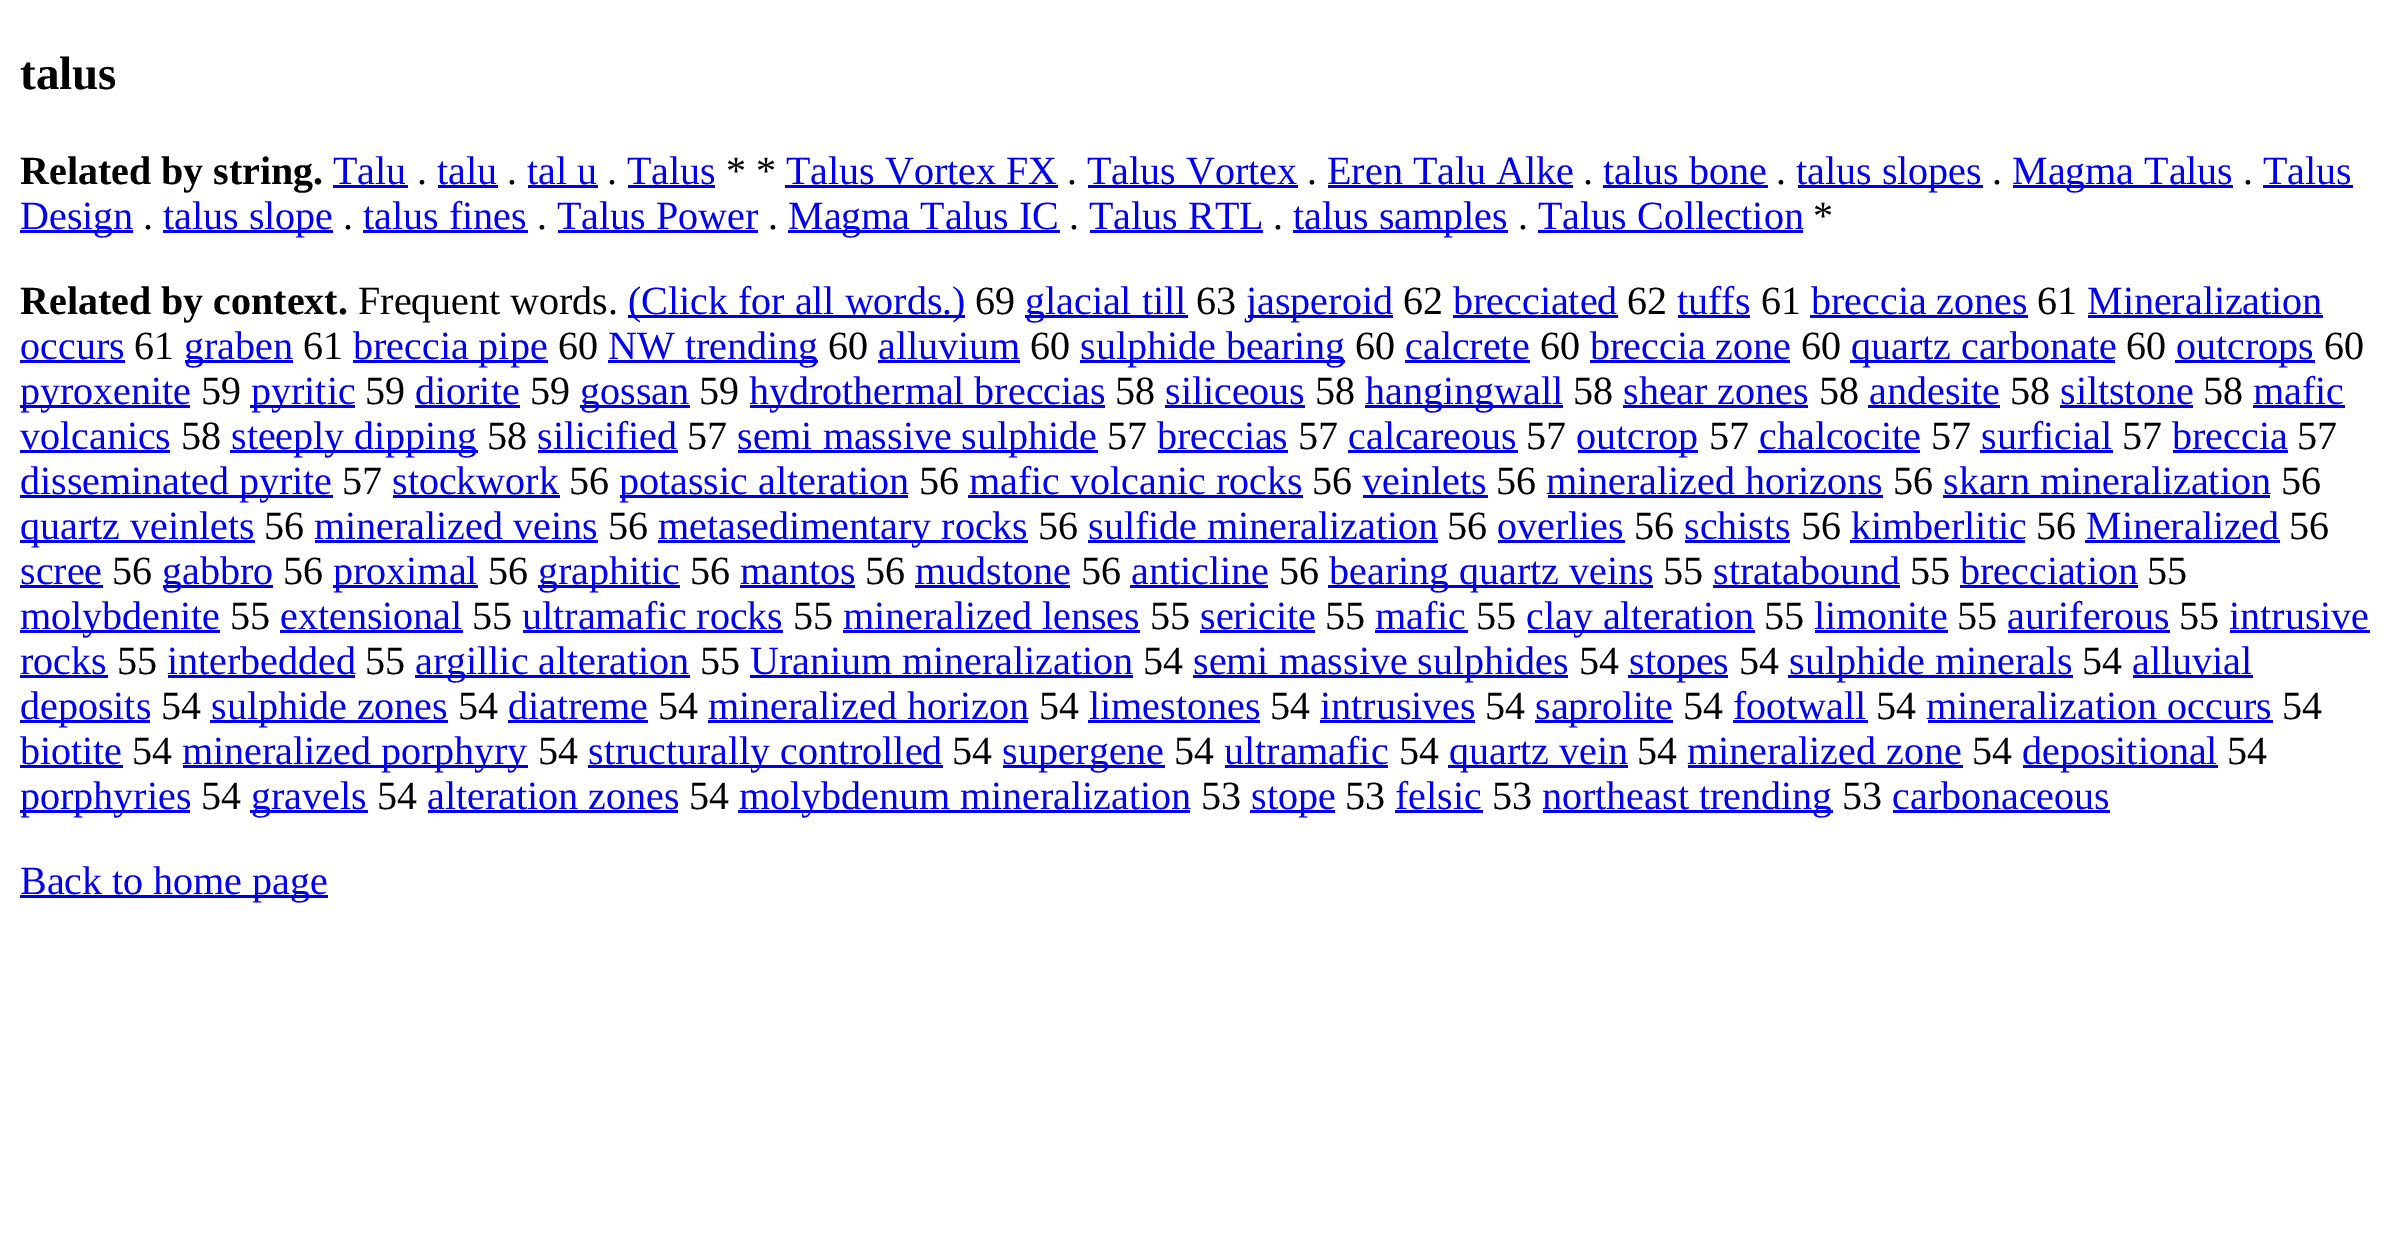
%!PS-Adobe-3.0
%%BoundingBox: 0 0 2404 1250
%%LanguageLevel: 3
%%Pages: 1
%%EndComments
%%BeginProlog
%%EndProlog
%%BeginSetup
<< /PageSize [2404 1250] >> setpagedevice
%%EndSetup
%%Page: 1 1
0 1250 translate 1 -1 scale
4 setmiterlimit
1 setgray
0 0 2404 1250 rectfill
0 0 0.933 setrgbcolor
333 185 75 3 rectfill
438 185 60 3 rectfill
528 185 70 3 rectfill
628 185 87 3 rectfill
785 185 273 3 rectfill
1088 185 210 3 rectfill
1328 185 245 3 rectfill
1603 185 165 3 rectfill
1798 185 185 3 rectfill
2013 185 220 3 rectfill
2263 185 90 3 rectfill
20 230 113 3 rectfill
163 230 170 3 rectfill
363 230 165 3 rectfill
558 230 200 3 rectfill
788 230 272 3 rectfill
1090 230 173 3 rectfill
1293 230 215 3 rectfill
1538 230 265 3 rectfill
628 315 337 3 rectfill
1025 315 163 3 rectfill
1248 315 145 3 rectfill
1453 315 165 3 rectfill
1678 315 72 3 rectfill
1810 315 218 3 rectfill
2088 315 235 3 rectfill
20 360 105 3 rectfill
185 360 108 3 rectfill
353 360 195 3 rectfill
608 360 210 3 rectfill
878 360 142 3 rectfill
1080 360 265 3 rectfill
1405 360 125 3 rectfill
1590 360 200 3 rectfill
1850 360 265 3 rectfill
2175 360 140 3 rectfill
20 405 170 3 rectfill
250 405 105 3 rectfill
415 405 105 3 rectfill
580 405 110 3 rectfill
750 405 355 3 rectfill
1165 405 140 3 rectfill
1365 405 198 3 rectfill
1623 405 185 3 rectfill
1868 405 132 3 rectfill
2060 405 133 3 rectfill
2253 405 92 3 rectfill
20 450 150 3 rectfill
230 450 248 3 rectfill
538 450 140 3 rectfill
738 450 360 3 rectfill
1158 450 130 3 rectfill
1348 450 170 3 rectfill
1578 450 120 3 rectfill
1758 450 162 3 rectfill
1980 450 133 3 rectfill
2173 450 115 3 rectfill
20 495 313 3 rectfill
393 495 167 3 rectfill
620 495 288 3 rectfill
968 495 335 3 rectfill
1363 495 125 3 rectfill
1548 495 335 3 rectfill
1943 495 327 3 rectfill
20 540 235 3 rectfill
315 540 283 3 rectfill
658 540 370 3 rectfill
1088 540 350 3 rectfill
1498 540 127 3 rectfill
1685 540 105 3 rectfill
1850 540 175 3 rectfill
2085 540 195 3 rectfill
20 585 83 3 rectfill
163 585 110 3 rectfill
333 585 145 3 rectfill
538 585 142 3 rectfill
740 585 115 3 rectfill
915 585 155 3 rectfill
1130 585 138 3 rectfill
1328 585 325 3 rectfill
1713 585 187 3 rectfill
1960 585 178 3 rectfill
20 630 200 3 rectfill
280 630 183 3 rectfill
523 630 260 3 rectfill
843 630 297 3 rectfill
1200 630 115 3 rectfill
1375 630 93 3 rectfill
1528 630 227 3 rectfill
1815 630 133 3 rectfill
2008 630 162 3 rectfill
2230 630 140 3 rectfill
20 675 88 3 rectfill
168 675 187 3 rectfill
415 675 275 3 rectfill
750 675 383 3 rectfill
1193 675 375 3 rectfill
1628 675 100 3 rectfill
1788 675 285 3 rectfill
2133 675 120 3 rectfill
20 720 130 3 rectfill
210 720 238 3 rectfill
508 720 140 3 rectfill
708 720 320 3 rectfill
1088 720 172 3 rectfill
1320 720 155 3 rectfill
1535 720 138 3 rectfill
1733 720 135 3 rectfill
1928 720 345 3 rectfill
20 765 103 3 rectfill
183 765 345 3 rectfill
588 765 355 3 rectfill
1003 765 162 3 rectfill
1225 765 163 3 rectfill
1448 765 180 3 rectfill
1688 765 275 3 rectfill
2023 765 195 3 rectfill
20 810 170 3 rectfill
250 810 118 3 rectfill
428 810 250 3 rectfill
738 810 452 3 rectfill
1250 810 85 3 rectfill
1395 810 88 3 rectfill
1543 810 290 3 rectfill
1893 810 217 3 rectfill
20 895 308 3 rectfill
/LiberationSerif-Bold [47 0 0 -47 0 0] selectfont
0 setgray
20 89 moveto (talus) show
/LiberationSerif-Bold [40 0 0 -40 0 0] selectfont
20 184 moveto (Related by string.) show
/LiberationSerif-Regular [40 0 0 -40 0 0] selectfont
0 0 0.933 setrgbcolor
333 184 moveto (Talu) show
437 184 moveto (talu) show
527 184 moveto (tal u) show
627 184 moveto (Talus) show
0 setgray
726 184 moveto (* *) show
0 0 0.933 setrgbcolor
786 184 moveto (Talus Vortex FX) show
1087 184 moveto (Talus Vortex) show
1327 184 moveto (Eren Talu Alke) show
1603 184 moveto (talus bone) show
1796 184 moveto (talus slopes) show
2012 184 moveto (Magma Talus) show
2263 184 moveto (Talus) show
0 setgray
417 184 moveto (.) show
507 184 moveto (.) show
607 184 moveto (.) show
1067 184 moveto (.) show
1307 184 moveto (.) show
1583 184 moveto (.) show
1776 184 moveto (.) show
1992 184 moveto (.) show
2243 184 moveto (.) show
0 0 0.933 setrgbcolor
20 229 moveto (Design) show
163 229 moveto (talus slope) show
363 229 moveto (talus fines) show
557 229 moveto (Talus Power) show
788 229 moveto (Magma Talus IC) show
1089 229 moveto (Talus RTL) show
1293 229 moveto (talus samples) show
1538 229 moveto (Talus Collection) show
0 setgray
1813 229 moveto (*) show
143 229 moveto (.) show
343 229 moveto (.) show
537 229 moveto (.) show
768 229 moveto (.) show
1069 229 moveto (.) show
1273 229 moveto (.) show
1518 229 moveto (.) show
/LiberationSerif-Bold [40 0 0 -40 0 0] selectfont
20 314 moveto (Related by context.) show
/LiberationSerif-Regular [40 0 0 -40 0 0] selectfont
358 314 moveto (Frequent words.) show
0 0 0.933 setrgbcolor
628 314 moveto (\(Click for all words.\)) show
0 setgray
975 314 moveto (69) show
0 0 0.933 setrgbcolor
1025 314 moveto (glacial till) show
0 setgray
1196 314 moveto (63) show
0 0 0.933 setrgbcolor
1246 314 moveto (jasperoid) show
0 setgray
1403 314 moveto (62) show
0 0 0.933 setrgbcolor
1453 314 moveto (brecciated) show
0 setgray
1627 314 moveto (62) show
0 0 0.933 setrgbcolor
1677 314 moveto (tuffs) show
0 setgray
1761 314 moveto (61) show
0 0 0.933 setrgbcolor
1811 314 moveto (breccia zones) show
0 setgray
2037 314 moveto (61) show
0 0 0.933 setrgbcolor
2087 314 moveto (Mineralization) show
20 359 moveto (occurs) show
0 setgray
134 359 moveto (61) show
0 0 0.933 setrgbcolor
184 359 moveto (graben) show
0 setgray
303 359 moveto (61) show
0 0 0.933 setrgbcolor
353 359 moveto (breccia pipe) show
0 setgray
558 359 moveto (60) show
0 0 0.933 setrgbcolor
608 359 moveto (NW trending) show
0 setgray
828 359 moveto (60) show
0 0 0.933 setrgbcolor
878 359 moveto (alluvium) show
0 setgray
1030 359 moveto (60) show
0 0 0.933 setrgbcolor
1080 359 moveto (sulphide bearing) show
0 setgray
1355 359 moveto (60) show
0 0 0.933 setrgbcolor
1405 359 moveto (calcrete) show
0 setgray
1540 359 moveto (60) show
0 0 0.933 setrgbcolor
1590 359 moveto (breccia zone) show
0 setgray
1801 359 moveto (60) show
0 0 0.933 setrgbcolor
1851 359 moveto (quartz carbonate) show
0 setgray
2126 359 moveto (60) show
0 0 0.933 setrgbcolor
2176 359 moveto (outcrops) show
0 setgray
2324 359 moveto (60) show
0 0 0.933 setrgbcolor
20 404 moveto (pyroxenite) show
0 setgray
201 404 moveto (59) show
0 0 0.933 setrgbcolor
251 404 moveto (pyritic) show
0 setgray
365 404 moveto (59) show
0 0 0.933 setrgbcolor
415 404 moveto (diorite) show
0 setgray
530 404 moveto (59) show
0 0 0.933 setrgbcolor
580 404 moveto (gossan) show
0 setgray
699 404 moveto (59) show
0 0 0.933 setrgbcolor
749 404 moveto (hydrothermal breccias) show
0 setgray
1115 404 moveto (58) show
0 0 0.933 setrgbcolor
1165 404 moveto (siliceous) show
0 setgray
1315 404 moveto (58) show
0 0 0.933 setrgbcolor
1365 404 moveto (hangingwall) show
0 setgray
1573 404 moveto (58) show
0 0 0.933 setrgbcolor
1623 404 moveto (shear zones) show
0 setgray
1819 404 moveto (58) show
0 0 0.933 setrgbcolor
1869 404 moveto (andesite) show
0 setgray
2010 404 moveto (58) show
0 0 0.933 setrgbcolor
2060 404 moveto (siltstone) show
0 setgray
2203 404 moveto (58) show
0 0 0.933 setrgbcolor
2253 404 moveto (mafic) show
20 449 moveto (volcanics) show
0 setgray
181 449 moveto (58) show
0 0 0.933 setrgbcolor
231 449 moveto (steeply dipping) show
0 setgray
487 449 moveto (58) show
0 0 0.933 setrgbcolor
537 449 moveto (silicified) show
0 setgray
687 449 moveto (57) show
0 0 0.933 setrgbcolor
737 449 moveto (semi massive sulphide) show
0 setgray
1107 449 moveto (57) show
0 0 0.933 setrgbcolor
1157 449 moveto (breccias) show
0 setgray
1298 449 moveto (57) show
0 0 0.933 setrgbcolor
1348 449 moveto (calcareous) show
0 setgray
1526 449 moveto (57) show
0 0 0.933 setrgbcolor
1576 449 moveto (outcrop) show
0 setgray
1709 449 moveto (57) show
0 0 0.933 setrgbcolor
1759 449 moveto (chalcocite) show
0 setgray
1931 449 moveto (57) show
0 0 0.933 setrgbcolor
1981 449 moveto (surficial) show
0 setgray
2122 449 moveto (57) show
0 0 0.933 setrgbcolor
2172 449 moveto (breccia) show
0 setgray
2297 449 moveto (57) show
0 0 0.933 setrgbcolor
20 494 moveto (disseminated pyrite) show
0 setgray
342 494 moveto (57) show
0 0 0.933 setrgbcolor
392 494 moveto (stockwork) show
0 setgray
569 494 moveto (56) show
0 0 0.933 setrgbcolor
619 494 moveto (potassic alteration) show
0 setgray
919 494 moveto (56) show
0 0 0.933 setrgbcolor
969 494 moveto (mafic volcanic rocks) show
0 setgray
1312 494 moveto (56) show
0 0 0.933 setrgbcolor
1362 494 moveto (veinlets) show
0 setgray
1496 494 moveto (56) show
0 0 0.933 setrgbcolor
1546 494 moveto (mineralized horizons) show
0 setgray
1893 494 moveto (56) show
0 0 0.933 setrgbcolor
1943 494 moveto (skarn mineralization) show
0 setgray
2281 494 moveto (56) show
0 0 0.933 setrgbcolor
20 539 moveto (quartz veinlets) show
0 setgray
264 539 moveto (56) show
0 0 0.933 setrgbcolor
314 539 moveto (mineralized veins) show
0 setgray
608 539 moveto (56) show
0 0 0.933 setrgbcolor
658 539 moveto (metasedimentary rocks) show
0 setgray
1038 539 moveto (56) show
0 0 0.933 setrgbcolor
1088 539 moveto (sulfide mineralization) show
0 setgray
1447 539 moveto (56) show
0 0 0.933 setrgbcolor
1497 539 moveto (overlies) show
0 setgray
1634 539 moveto (56) show
0 0 0.933 setrgbcolor
1684 539 moveto (schists) show
0 setgray
1801 539 moveto (56) show
0 0 0.933 setrgbcolor
1851 539 moveto (kimberlitic) show
0 setgray
2036 539 moveto (56) show
0 0 0.933 setrgbcolor
2086 539 moveto (Mineralized) show
0 setgray
2289 539 moveto (56) show
0 0 0.933 setrgbcolor
20 584 moveto (scree) show
0 setgray
112 584 moveto (56) show
0 0 0.933 setrgbcolor
162 584 moveto (gabbro) show
0 setgray
283 584 moveto (56) show
0 0 0.933 setrgbcolor
333 584 moveto (proximal) show
0 setgray
488 584 moveto (56) show
0 0 0.933 setrgbcolor
538 584 moveto (graphitic) show
0 setgray
690 584 moveto (56) show
0 0 0.933 setrgbcolor
740 584 moveto (mantos) show
0 setgray
865 584 moveto (56) show
0 0 0.933 setrgbcolor
915 584 moveto (mudstone) show
0 setgray
1081 584 moveto (56) show
0 0 0.933 setrgbcolor
1131 584 moveto (anticline) show
0 setgray
1279 584 moveto (56) show
0 0 0.933 setrgbcolor
1329 584 moveto (bearing quartz veins) show
0 setgray
1663 584 moveto (55) show
0 0 0.933 setrgbcolor
1713 584 moveto (stratabound) show
0 setgray
1910 584 moveto (55) show
0 0 0.933 setrgbcolor
1960 584 moveto (brecciation) show
0 setgray
2147 584 moveto (55) show
0 0 0.933 setrgbcolor
20 629 moveto (molybdenite) show
0 setgray
230 629 moveto (55) show
0 0 0.933 setrgbcolor
280 629 moveto (extensional) show
0 setgray
472 629 moveto (55) show
0 0 0.933 setrgbcolor
522 629 moveto (ultramafic rocks) show
0 setgray
793 629 moveto (55) show
0 0 0.933 setrgbcolor
843 629 moveto (mineralized lenses) show
0 setgray
1150 629 moveto (55) show
0 0 0.933 setrgbcolor
1200 629 moveto (sericite) show
0 setgray
1325 629 moveto (55) show
0 0 0.933 setrgbcolor
1375 629 moveto (mafic) show
0 setgray
1476 629 moveto (55) show
0 0 0.933 setrgbcolor
1526 629 moveto (clay alteration) show
0 setgray
1764 629 moveto (55) show
0 0 0.933 setrgbcolor
1814 629 moveto (limonite) show
0 setgray
1957 629 moveto (55) show
0 0 0.933 setrgbcolor
2007 629 moveto (auriferous) show
0 setgray
2179 629 moveto (55) show
0 0 0.933 setrgbcolor
2229 629 moveto (intrusive) show
20 674 moveto (rocks) show
0 setgray
117 674 moveto (55) show
0 0 0.933 setrgbcolor
167 674 moveto (interbedded) show
0 setgray
365 674 moveto (55) show
0 0 0.933 setrgbcolor
415 674 moveto (argillic alteration) show
0 setgray
700 674 moveto (55) show
0 0 0.933 setrgbcolor
750 674 moveto (Uranium mineralization) show
0 setgray
1143 674 moveto (54) show
0 0 0.933 setrgbcolor
1193 674 moveto (semi massive sulphides) show
0 setgray
1579 674 moveto (54) show
0 0 0.933 setrgbcolor
1629 674 moveto (stopes) show
0 setgray
1739 674 moveto (54) show
0 0 0.933 setrgbcolor
1789 674 moveto (sulphide minerals) show
0 setgray
2082 674 moveto (54) show
0 0 0.933 setrgbcolor
2132 674 moveto (alluvial) show
20 719 moveto (deposits) show
0 setgray
161 719 moveto (54) show
0 0 0.933 setrgbcolor
211 719 moveto (sulphide zones) show
0 setgray
458 719 moveto (54) show
0 0 0.933 setrgbcolor
508 719 moveto (diatreme) show
0 setgray
658 719 moveto (54) show
0 0 0.933 setrgbcolor
708 719 moveto (mineralized horizon) show
0 setgray
1039 719 moveto (54) show
0 0 0.933 setrgbcolor
1089 719 moveto (limestones) show
0 setgray
1270 719 moveto (54) show
0 0 0.933 setrgbcolor
1320 719 moveto (intrusives) show
0 setgray
1485 719 moveto (54) show
0 0 0.933 setrgbcolor
1535 719 moveto (saprolite) show
0 setgray
1683 719 moveto (54) show
0 0 0.933 setrgbcolor
1733 719 moveto (footwall) show
0 setgray
1876 719 moveto (54) show
0 0 0.933 setrgbcolor
1926 719 moveto (mineralization occurs) show
0 setgray
2282 719 moveto (54) show
0 0 0.933 setrgbcolor
20 764 moveto (biotite) show
0 setgray
132 764 moveto (54) show
0 0 0.933 setrgbcolor
182 764 moveto (mineralized porphyry) show
0 setgray
538 764 moveto (54) show
0 0 0.933 setrgbcolor
588 764 moveto (structurally controlled) show
0 setgray
952 764 moveto (54) show
0 0 0.933 setrgbcolor
1002 764 moveto (supergene) show
0 setgray
1174 764 moveto (54) show
0 0 0.933 setrgbcolor
1224 764 moveto (ultramafic) show
0 setgray
1399 764 moveto (54) show
0 0 0.933 setrgbcolor
1449 764 moveto (quartz vein) show
0 setgray
1637 764 moveto (54) show
0 0 0.933 setrgbcolor
1687 764 moveto (mineralized zone) show
0 setgray
1972 764 moveto (54) show
0 0 0.933 setrgbcolor
2022 764 moveto (depositional) show
0 setgray
2227 764 moveto (54) show
0 0 0.933 setrgbcolor
20 809 moveto (porphyries) show
0 setgray
201 809 moveto (54) show
0 0 0.933 setrgbcolor
251 809 moveto (gravels) show
0 setgray
377 809 moveto (54) show
0 0 0.933 setrgbcolor
427 809 moveto (alteration zones) show
0 setgray
689 809 moveto (54) show
0 0 0.933 setrgbcolor
739 809 moveto (molybdenum mineralization) show
0 setgray
1201 809 moveto (53) show
0 0 0.933 setrgbcolor
1251 809 moveto (stope) show
0 setgray
1345 809 moveto (53) show
0 0 0.933 setrgbcolor
1395 809 moveto (felsic) show
0 setgray
1492 809 moveto (53) show
0 0 0.933 setrgbcolor
1542 809 moveto (northeast trending) show
0 setgray
1842 809 moveto (53) show
0 0 0.933 setrgbcolor
1892 809 moveto (carbonaceous) show
20 894 moveto (Back to home page) show
showpage
%%EOF
